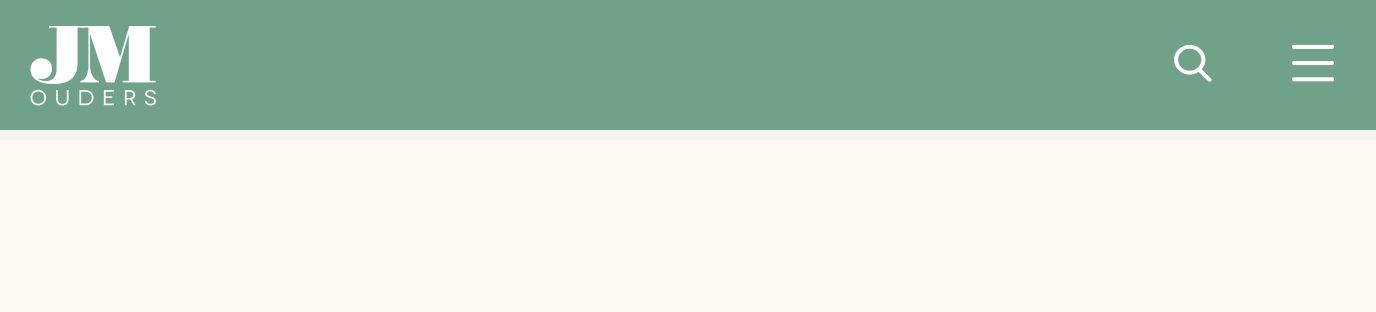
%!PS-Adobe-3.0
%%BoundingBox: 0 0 1376 312
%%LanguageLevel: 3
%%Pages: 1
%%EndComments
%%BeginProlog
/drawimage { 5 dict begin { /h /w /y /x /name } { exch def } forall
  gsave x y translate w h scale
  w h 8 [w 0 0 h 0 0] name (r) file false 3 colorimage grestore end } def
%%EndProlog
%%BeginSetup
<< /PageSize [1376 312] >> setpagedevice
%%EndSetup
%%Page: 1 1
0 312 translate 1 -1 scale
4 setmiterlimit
0.992 0.973 0.949 setrgbcolor
0 0 1376 312 rectfill
0.439 0.635 0.537 setrgbcolor
0 0 1376 130 rectfill
(images/1.raw) 30 26 126 80 drawimage
(images/2.raw) 1174 44 38 38 drawimage
(images/3.raw) 1292 44 43 38 drawimage
0.957 setgray
0 130 1376 10 rectfill
showpage
%%EOF
